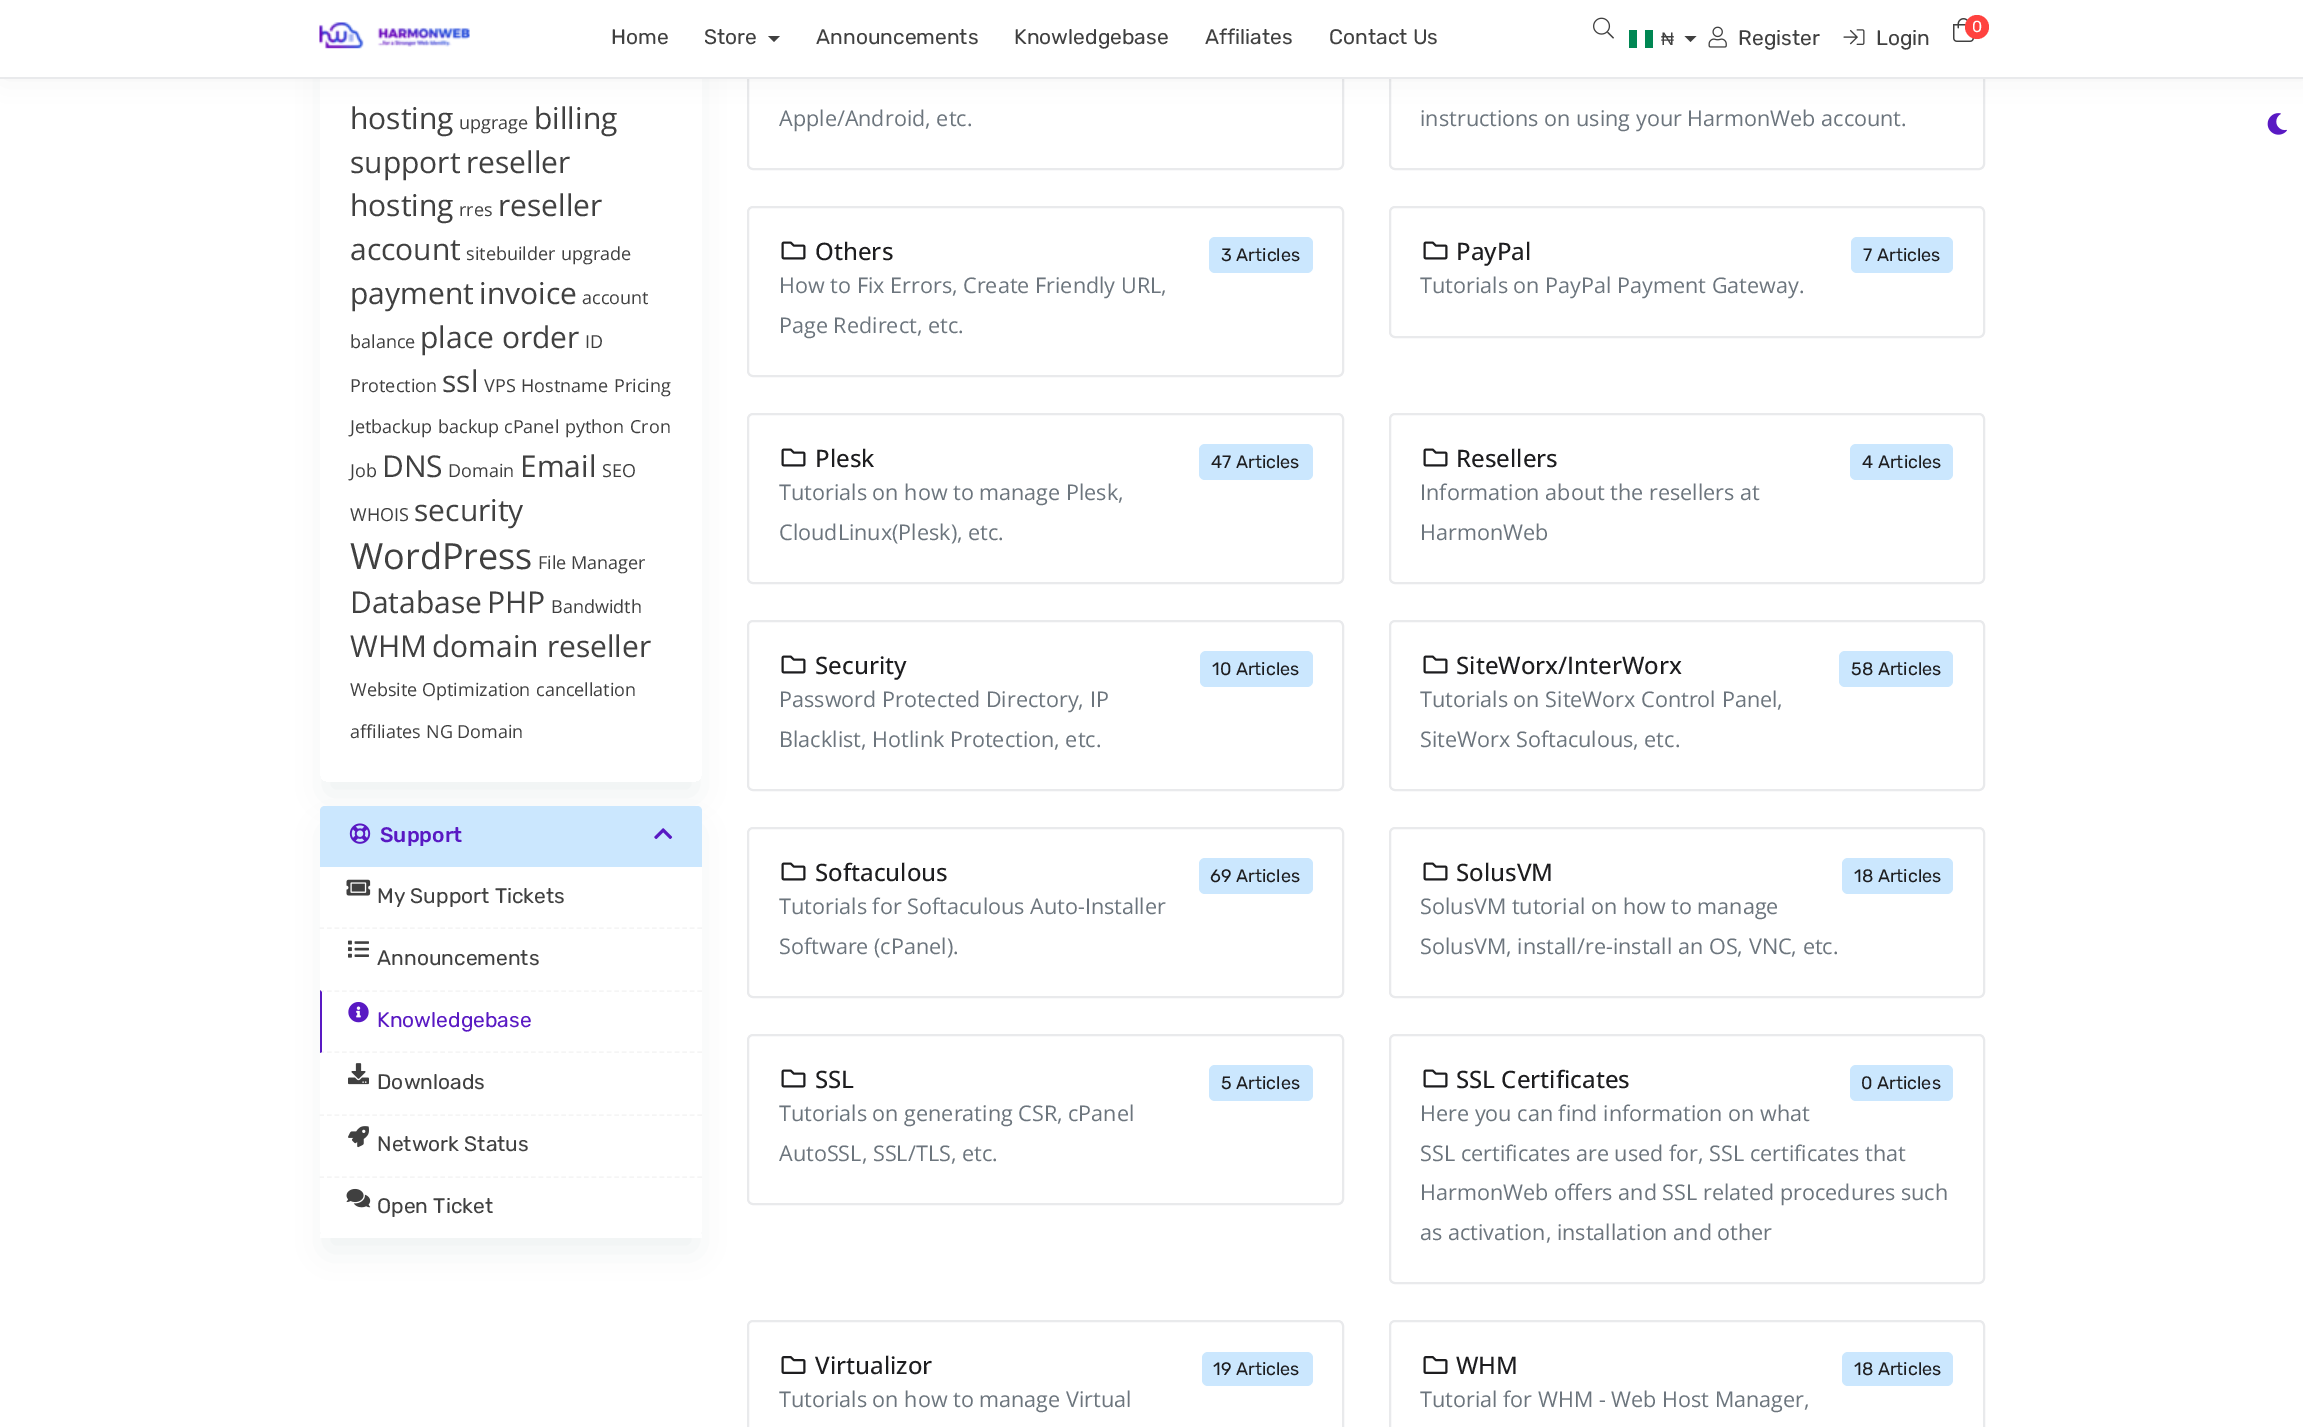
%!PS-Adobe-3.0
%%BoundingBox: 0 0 2303 1427
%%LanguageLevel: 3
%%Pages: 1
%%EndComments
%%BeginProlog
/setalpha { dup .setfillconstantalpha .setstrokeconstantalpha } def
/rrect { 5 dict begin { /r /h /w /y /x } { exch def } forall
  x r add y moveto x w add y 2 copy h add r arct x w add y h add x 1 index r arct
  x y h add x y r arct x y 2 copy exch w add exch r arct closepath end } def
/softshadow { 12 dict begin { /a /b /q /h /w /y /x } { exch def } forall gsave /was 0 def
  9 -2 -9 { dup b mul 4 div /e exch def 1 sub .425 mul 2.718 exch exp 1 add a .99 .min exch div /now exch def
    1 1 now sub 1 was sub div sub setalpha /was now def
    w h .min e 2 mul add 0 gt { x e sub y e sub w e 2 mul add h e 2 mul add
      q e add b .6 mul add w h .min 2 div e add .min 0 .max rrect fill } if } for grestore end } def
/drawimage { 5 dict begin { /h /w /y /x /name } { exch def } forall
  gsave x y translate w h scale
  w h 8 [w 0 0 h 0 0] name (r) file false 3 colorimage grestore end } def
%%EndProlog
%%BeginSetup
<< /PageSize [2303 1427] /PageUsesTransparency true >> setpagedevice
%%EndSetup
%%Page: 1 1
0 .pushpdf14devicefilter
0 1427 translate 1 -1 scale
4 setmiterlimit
1 setgray
0 0 2303 1427 rectfill
gsave
newpath 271 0 moveto 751 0 lineto 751 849 lineto 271 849 lineto closepath 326 -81 moveto 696 -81 lineto 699.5 -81 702 -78.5 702 -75 curveto 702 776 lineto 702 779.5 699.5 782 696 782 curveto 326 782 lineto 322.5 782 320 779.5 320 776 curveto 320 -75 lineto 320 -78.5 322.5 -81 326 -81 curveto closepath eoclip newpath
0.569 0.62 0.671 setrgbcolor
326 -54 370 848 0 18 0.16 softshadow
grestore
0.914 0.918 0.925 setrgbcolor
2 setlinewidth
748 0 595 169 5 rrect stroke
1390 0 594 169 5 rrect stroke
0 setgray
3 0 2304 78 0 15 0.06 softshadow
1 setgray
0 0 2303 77 rectfill
0.914 0.918 0.925 setrgbcolor
0 77 2303 2 rectfill
(images/1.raw) 319 22 151 27 drawimage
0.251 setgray
newpath 768 36 moveto 780 36 lineto 774 42 lineto closepath fill
(images/2.raw) 1593 17 21 22 drawimage
(images/3.raw) 1953 18 21 24 drawimage
1 0.259 0.247 setrgbcolor
newpath 1977 27 12 0 360 arc closepath fill
(images/4.raw) 1629 30 24 18 drawimage
0.251 setgray
newpath 1684.5 36 moveto 1696.5 36 lineto 1690.5 42 lineto closepath fill
(images/5.raw) 1708 26 19 22 drawimage
(images/6.raw) 1843 29 22 16 drawimage
gsave
newpath 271 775 moveto 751 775 lineto 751 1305 lineto 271 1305 lineto closepath 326 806 moveto 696 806 lineto 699.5 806 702 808.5 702 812 curveto 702 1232 lineto 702 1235.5 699.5 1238 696 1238 curveto 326 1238 lineto 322.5 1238 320 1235.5 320 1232 curveto 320 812 lineto 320 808.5 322.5 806 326 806 curveto closepath eoclip newpath
0.569 0.62 0.671 setrgbcolor
326 830 370 420 0 18 0.16 softshadow
grestore
0.796 0.906 0.996 setrgbcolor
newpath 325 806 moveto 697 806 lineto 700 806 702 808 702 811 curveto 702 867 lineto 320 867 lineto 320 811 lineto 320 808 322 806 325 806 curveto closepath fill
(images/7.raw) 349 823 22 21 drawimage
(images/8.raw) 654 828 19 11 drawimage
0.961 setgray
1.5 setlinewidth
[4.5 3.06] 0 setdash
newpath 319.5 928 moveto 702 928 lineto stroke
(images/9.raw) 346 879 25 17 drawimage
newpath 319.5 991 moveto 702 991 lineto stroke
(images/10.raw) 348 940 21 18 drawimage
newpath 319.5 1052 moveto 702 1052 lineto stroke
0.349 0.098 0.765 setrgbcolor
newpath 320 1053 moveto 320 990 lineto 322 992 lineto 322 1052 lineto closepath fill
(images/11.raw) 348 1002 21 21 drawimage
0.961 setgray
newpath 319.5 1115 moveto 702 1115 lineto stroke
(images/12.raw) 348 1063 21 22 drawimage
newpath 319.5 1177 moveto 702 1177 lineto stroke
(images/13.raw) 348 1126 21 22 drawimage
1 setgray
320 1234 382 4 rectfill
(images/14.raw) 346 1188 25 20 drawimage
0.914 0.918 0.925 setrgbcolor
2 setlinewidth
[] 0 setdash
748 207 595 169 5 rrect stroke
(images/15.raw) 781 241 25 19 drawimage
0.796 0.906 0.996 setrgbcolor
1209 237 104 36 6 rrect fill
0.914 0.918 0.925 setrgbcolor
1390 207 594 130 5 rrect stroke
(images/15.raw) 1423 241 25 19 drawimage
0.796 0.906 0.996 setrgbcolor
1851 237 102 36 6 rrect fill
0.914 0.918 0.925 setrgbcolor
748 414 595 169 5 rrect stroke
(images/15.raw) 781 448 25 19 drawimage
0.796 0.906 0.996 setrgbcolor
1199 444 114 36 6 rrect fill
0.914 0.918 0.925 setrgbcolor
1390 414 594 169 5 rrect stroke
(images/15.raw) 1423 448 25 19 drawimage
0.796 0.906 0.996 setrgbcolor
1850 444 103 36 6 rrect fill
0.914 0.918 0.925 setrgbcolor
748 621 595 169 5 rrect stroke
(images/15.raw) 781 655 25 19 drawimage
0.796 0.906 0.996 setrgbcolor
1200 651 113 36 6 rrect fill
0.914 0.918 0.925 setrgbcolor
1390 621 594 169 5 rrect stroke
(images/15.raw) 1423 655 25 19 drawimage
0.796 0.906 0.996 setrgbcolor
1839 651 114 36 6 rrect fill
0.914 0.918 0.925 setrgbcolor
748 828 595 169 5 rrect stroke
(images/15.raw) 781 862 25 19 drawimage
0.796 0.906 0.996 setrgbcolor
1199 858 114 36 6 rrect fill
0.914 0.918 0.925 setrgbcolor
1390 828 594 169 5 rrect stroke
(images/15.raw) 1423 862 25 19 drawimage
0.796 0.906 0.996 setrgbcolor
1842 858 111 36 6 rrect fill
0.914 0.918 0.925 setrgbcolor
748 1035 595 169 5 rrect stroke
(images/15.raw) 781 1069 25 19 drawimage
0.796 0.906 0.996 setrgbcolor
1209 1065 104 36 6 rrect fill
0.914 0.918 0.925 setrgbcolor
1390 1035 594 248 5 rrect stroke
(images/15.raw) 1423 1069 25 19 drawimage
0.796 0.906 0.996 setrgbcolor
1850 1065 103 36 6 rrect fill
0.914 0.918 0.925 setrgbcolor
748 1321 595 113 5 rrect stroke
(images/16.raw) 781 1356 25 18 drawimage
0.796 0.906 0.996 setrgbcolor
1202 1352 111 34 6 rrect fill
0.914 0.918 0.925 setrgbcolor
1390 1321 594 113 5 rrect stroke
(images/16.raw) 1423 1356 25 18 drawimage
0.796 0.906 0.996 setrgbcolor
1842 1352 111 34 6 rrect fill
(images/17.raw) 2267 113 20 22 drawimage
/Rubik-Regular [21 0 0 -21 0 0] selectfont
0.251 setgray
611 44 moveto (Home) show
704 44 moveto (Store) show
816 44 moveto (Announcements) show
1014 44 moveto (Knowledgebase) show
1205 44 moveto (Affiliates) show
1329 44 moveto (Contact Us) show
/Rubik-Regular [16 0 0 -16 0 0] selectfont
1 setgray
1972 32 moveto (0) show
/LiberationSans-Regular [18 0 0 -18 0 0] selectfont
0.251 setgray
1661 45 moveto (₦) show
/Rubik-Regular [21 0 0 -21 0 0] selectfont
1738 45 moveto (Register) show
1876 45 moveto (Login) show
/OpenSans-Regular [30 0 0 -30 0 0] selectfont
350 129 moveto (hosting) show
/OpenSans-Regular [18 0 0 -18 0 0] selectfont
459 129 moveto (upgrage) show
/OpenSans-Regular [30 0 0 -30 0 0] selectfont
534 129 moveto (billing) show
350 173 moveto (support) show
466 173 moveto (reseller) show
350 216 moveto (hosting) show
/OpenSans-Regular [18 0 0 -18 0 0] selectfont
459 216 moveto (rres) show
/OpenSans-Regular [30 0 0 -30 0 0] selectfont
498 216 moveto (reseller) show
350 260 moveto (account) show
/OpenSans-Regular [18 0 0 -18 0 0] selectfont
466 260 moveto (sitebuilder) show
561 260 moveto (upgrade) show
/OpenSans-Regular [30 0 0 -30 0 0] selectfont
350 304 moveto (payment) show
479 304 moveto (invoice) show
/OpenSans-Regular [18 0 0 -18 0 0] selectfont
582 304 moveto (account) show
350 348 moveto (balance) show
/OpenSans-Regular [30 0 0 -30 0 0] selectfont
420 348 moveto (place order) show
/OpenSans-Regular [18 0 0 -18 0 0] selectfont
585 348 moveto (ID) show
350 392 moveto (Protection) show
/OpenSans-Regular [30 0 0 -30 0 0] selectfont
442 392 moveto (ssl) show
/OpenSans-Regular [18 0 0 -18 0 0] selectfont
484 392 moveto (VPS) show
521 392 moveto (Hostname) show
614 392 moveto (Pricing) show
350 433 moveto (Jetbackup) show
438 433 moveto (backup) show
504 433 moveto (cPanel) show
565 433 moveto (python) show
630 433 moveto (Cron) show
350 477 moveto (Job) show
/OpenSans-Regular [30 0 0 -30 0 0] selectfont
382 477 moveto (DNS) show
/OpenSans-Regular [18 0 0 -18 0 0] selectfont
448 477 moveto (Domain) show
/OpenSans-Regular [30 0 0 -30 0 0] selectfont
520 477 moveto (Email) show
/OpenSans-Regular [18 0 0 -18 0 0] selectfont
602 477 moveto (SEO) show
350 521 moveto (WHOIS) show
/OpenSans-Regular [30 0 0 -30 0 0] selectfont
414 521 moveto (security) show
/OpenSans-Regular [36 0 0 -36 0 0] selectfont
350 569 moveto (WordPress) show
/OpenSans-Regular [18 0 0 -18 0 0] selectfont
538 569 moveto (File Manager) show
/OpenSans-Regular [30 0 0 -30 0 0] selectfont
350 613 moveto (Database) show
487 613 moveto (PHP) show
/OpenSans-Regular [18 0 0 -18 0 0] selectfont
551 613 moveto (Bandwidth) show
/OpenSans-Regular [30 0 0 -30 0 0] selectfont
350 657 moveto (WHM) show
432 657 moveto (domain reseller) show
/OpenSans-Regular [18 0 0 -18 0 0] selectfont
350 696 moveto (Website Optimization) show
536 696 moveto (cancellation) show
350 738 moveto (affiliates) show
426 738 moveto (NG Domain) show
/Rubik-Medium [21 0 0 -21 0 0] selectfont
0.349 0.098 0.765 setrgbcolor
380 842 moveto (Support) show
/Rubik-Regular [21 0 0 -21 0 0] selectfont
0.251 setgray
377 903 moveto (My Support Tickets) show
377 965 moveto (Announcements) show
0.349 0.098 0.765 setrgbcolor
377 1027 moveto (Knowledgebase) show
0.251 setgray
377 1089 moveto (Downloads) show
377 1151 moveto (Network Status) show
377 1213 moveto (Open Ticket) show
/OpenSans-Regular [21.6 0 0 -21.6 0 0] selectfont
0.424 0.459 0.49 setrgbcolor
779 126 moveto (Apple/Android, etc.) show
1420 126 moveto (instructions on using your HarmonWeb account.) show
/OpenSans-Medium [24 0 0 -24 0 0] selectfont
0.114 0.114 0.122 setrgbcolor
815 260 moveto (Others) show
/Rubik-Regular [18 0 0 -18 0 0] selectfont
1221 261 moveto (3 Articles) show
/OpenSans-Regular [21.6 0 0 -21.6 0 0] selectfont
0.424 0.459 0.49 setrgbcolor
779 293 moveto (How to Fix Errors, Create Friendly URL,) show
779 333 moveto (Page Redirect, etc.) show
/OpenSans-Medium [24 0 0 -24 0 0] selectfont
0.114 0.114 0.122 setrgbcolor
1456 260 moveto (PayPal) show
/Rubik-Regular [18 0 0 -18 0 0] selectfont
1863 261 moveto (7 Articles) show
/OpenSans-Regular [21.6 0 0 -21.6 0 0] selectfont
0.424 0.459 0.49 setrgbcolor
1420 293 moveto (Tutorials on PayPal Payment Gateway.) show
/OpenSans-Medium [24 0 0 -24 0 0] selectfont
0.114 0.114 0.122 setrgbcolor
815 467 moveto (Plesk) show
/Rubik-Regular [18 0 0 -18 0 0] selectfont
1211 468 moveto (47 Articles) show
/OpenSans-Regular [21.6 0 0 -21.6 0 0] selectfont
0.424 0.459 0.49 setrgbcolor
779 500 moveto (Tutorials on how to manage Plesk,) show
779 540 moveto (CloudLinux\(Plesk\), etc.) show
/OpenSans-Medium [24 0 0 -24 0 0] selectfont
0.114 0.114 0.122 setrgbcolor
1456 467 moveto (Resellers) show
/Rubik-Regular [18 0 0 -18 0 0] selectfont
1862 468 moveto (4 Articles) show
/OpenSans-Regular [21.6 0 0 -21.6 0 0] selectfont
0.424 0.459 0.49 setrgbcolor
1420 500 moveto (Information about the resellers at) show
1420 540 moveto (HarmonWeb) show
/OpenSans-Medium [24 0 0 -24 0 0] selectfont
0.114 0.114 0.122 setrgbcolor
815 674 moveto (Security) show
/Rubik-Regular [18 0 0 -18 0 0] selectfont
1212 675 moveto (10 Articles) show
/OpenSans-Regular [21.6 0 0 -21.6 0 0] selectfont
0.424 0.459 0.49 setrgbcolor
779 707 moveto (Password Protected Directory, IP) show
779 747 moveto (Blacklist, Hotlink Protection, etc.) show
/OpenSans-Medium [24 0 0 -24 0 0] selectfont
0.114 0.114 0.122 setrgbcolor
1456 674 moveto (SiteWorx/InterWorx) show
/Rubik-Regular [18 0 0 -18 0 0] selectfont
1851 675 moveto (58 Articles) show
/OpenSans-Regular [21.6 0 0 -21.6 0 0] selectfont
0.424 0.459 0.49 setrgbcolor
1420 707 moveto (Tutorials on SiteWorx Control Panel,) show
1420 747 moveto (SiteWorx Softaculous, etc.) show
/OpenSans-Medium [24 0 0 -24 0 0] selectfont
0.114 0.114 0.122 setrgbcolor
815 881 moveto (Softaculous) show
/Rubik-Regular [18 0 0 -18 0 0] selectfont
1210 882 moveto (69 Articles) show
/OpenSans-Regular [21.6 0 0 -21.6 0 0] selectfont
0.424 0.459 0.49 setrgbcolor
779 914 moveto (Tutorials for Softaculous Auto-Installer) show
779 954 moveto (Software \(cPanel\).) show
/OpenSans-Medium [24 0 0 -24 0 0] selectfont
0.114 0.114 0.122 setrgbcolor
1456 881 moveto (SolusVM) show
/Rubik-Regular [18 0 0 -18 0 0] selectfont
1854 882 moveto (18 Articles) show
/OpenSans-Regular [21.6 0 0 -21.6 0 0] selectfont
0.424 0.459 0.49 setrgbcolor
1420 914 moveto (SolusVM tutorial on how to manage) show
1420 954 moveto (SolusVM, install/re-install an OS, VNC, etc.) show
/OpenSans-Medium [24 0 0 -24 0 0] selectfont
0.114 0.114 0.122 setrgbcolor
815 1088 moveto (SSL) show
/Rubik-Regular [18 0 0 -18 0 0] selectfont
1221 1089 moveto (5 Articles) show
/OpenSans-Regular [21.6 0 0 -21.6 0 0] selectfont
0.424 0.459 0.49 setrgbcolor
779 1121 moveto (Tutorials on generating CSR, cPanel) show
779 1161 moveto (AutoSSL, SSL/TLS, etc.) show
/OpenSans-Medium [24 0 0 -24 0 0] selectfont
0.114 0.114 0.122 setrgbcolor
1456 1088 moveto (SSL Certificates) show
/Rubik-Regular [18 0 0 -18 0 0] selectfont
1861 1089 moveto (0 Articles) show
/OpenSans-Regular [21.6 0 0 -21.6 0 0] selectfont
0.424 0.459 0.49 setrgbcolor
1420 1121 moveto (Here you can find information on what) show
1420 1161 moveto (SSL certificates are used for, SSL certificates that) show
1420 1200 moveto (HarmonWeb offers and SSL related procedures such) show
1420 1240 moveto (as activation, installation and other) show
/OpenSans-Medium [24 0 0 -24 0 0] selectfont
0.114 0.114 0.122 setrgbcolor
815 1374 moveto (Virtualizor) show
/Rubik-Regular [18 0 0 -18 0 0] selectfont
1213 1375 moveto (19 Articles) show
/OpenSans-Regular [21.6 0 0 -21.6 0 0] selectfont
0.424 0.459 0.49 setrgbcolor
779 1407 moveto (Tutorials on how to manage Virtual) show
/OpenSans-Medium [24 0 0 -24 0 0] selectfont
0.114 0.114 0.122 setrgbcolor
1456 1374 moveto (WHM) show
/Rubik-Regular [18 0 0 -18 0 0] selectfont
1854 1375 moveto (18 Articles) show
/OpenSans-Regular [21.6 0 0 -21.6 0 0] selectfont
0.424 0.459 0.49 setrgbcolor
1420 1407 moveto (Tutorial for WHM - Web Host Manager,) show
.poppdf14devicefilter showpage
%%EOF
